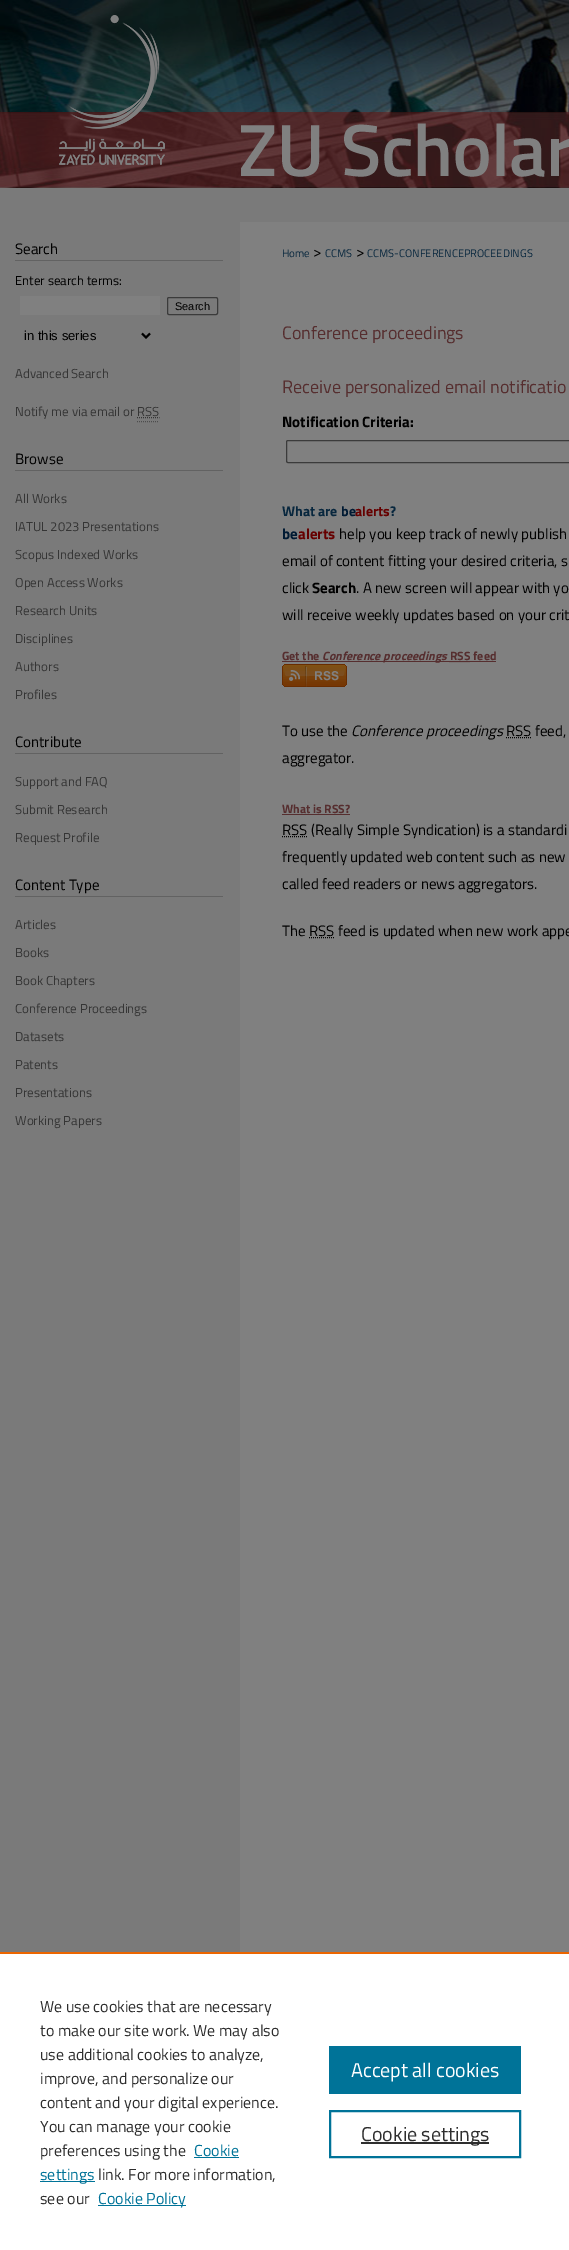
%!PS-Adobe-3.0
%%BoundingBox: 0 0 569 2250
%%LanguageLevel: 3
%%Pages: 1
%%EndComments
%%BeginProlog
/rrect { 5 dict begin { /r /h /w /y /x } { exch def } forall
  x r add y moveto x w add y 2 copy h add r arct x w add y h add x 1 index r arct
  x y h add x y r arct x y 2 copy exch w add exch r arct closepath end } def
/drawimage { 5 dict begin { /h /w /y /x /name } { exch def } forall
  gsave x y translate w h scale
  w h 8 [w 0 0 h 0 0] name (r) file false 3 colorimage grestore end } def
%%EndProlog
%%BeginSetup
<< /PageSize [569 2250] >> setpagedevice
%%EndSetup
%%Page: 1 1
0 2250 translate 1 -1 scale
4 setmiterlimit
0.478 setgray
0 0 569 2250 rectfill
(images/1.raw) 0 0 569 188 drawimage
(images/2.raw) 59 15 510 162 drawimage
(images/3.raw) 59 15 106 150 drawimage
0.502 setgray
240 222 329 1730 rectfill
0.384 setgray
15 260 208 1 rectfill
0.502 setgray
20 296 140 19 rectfill
0.231 setgray
167.5 297.5 50 17 1.5 rrect stroke
0 setgray
2 setlinewidth
newpath 142 333.5 moveto 146 337.5 lineto 150 333.5 lineto stroke
0.208 setgray
1 setlinewidth
[1 1] 0 setdash
newpath 137 417.5 moveto 159.5 417.5 lineto stroke
0.302 setgray
newpath 137 421.5 moveto 159 421.5 lineto stroke
0.384 setgray
15 470 208 1 rectfill
15 753 208 1 rectfill
15 896 208 1 rectfill
0.231 setgray
[] 0 setdash
286.5 440.5 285 22 1.5 rrect stroke
0.337 0.18 0.184 setrgbcolor
282 661 165 1 rectfill
447 661 3 1 rectfill
[1 1] 0 setdash
newpath 449.5 661.5 moveto 470 661.5 lineto stroke
450 661 46 1 rectfill
(images/4.raw) 282 664 65 23 drawimage
0 setgray
newpath 506 737.5 moveto 531.5 737.5 lineto stroke
0.337 0.18 0.184 setrgbcolor
282 814 68 1 rectfill
0 setgray
newpath 282 836.5 moveto 307.5 836.5 lineto stroke
newpath 309 937.5 moveto 334.5 937.5 lineto stroke
1 setgray
0 1954 569 296 rectfill
0.922 0.396 0 setrgbcolor
0 1952 569 2 rectfill
0 0.451 0.596 setrgbcolor
194 2157 45 1 rectfill
40 2181 55 1 rectfill
98 2205 88 1 rectfill
329 2046 192 48 rectfill
2 setlinewidth
[] 0 setdash
330 2111 190 46 rectstroke
0.18 setgray
361 2142 128 2 rectfill
/TitilliumWeb-Regular [15 0 0 -15 0 0] selectfont
0 setgray
15 254 moveto (Search) show
/TitilliumWeb-Regular [13 0 0 -13 0 0] selectfont
15 285 moveto (Enter search terms:) show
/LiberationSans-Regular [11 0 0 -11 0 0] selectfont
175 310 moveto (Search) show
/LiberationSans-Regular [13 0 0 -13 0 0] selectfont
24 340 moveto (in this series) show
/TitilliumWeb-Regular [13 0 0 -13 0 0] selectfont
0.208 setgray
15 378 moveto (Advanced Search) show
15 416 moveto (Notify me via email or RSS) show
/TitilliumWeb-Regular [15 0 0 -15 0 0] selectfont
0 setgray
15 464 moveto (Browse) show
/TitilliumWeb-Regular [13 0 0 -13 0 0] selectfont
0.208 setgray
15 503 moveto (All Works) show
15 531 moveto (IATUL 2023 Presentations) show
15 559 moveto (Scopus Indexed Works) show
15 587 moveto (Open Access Works) show
15 615 moveto (Research Units) show
15 643 moveto (Disciplines) show
15 671 moveto (Authors) show
15 699 moveto (Profiles) show
/TitilliumWeb-Regular [15 0 0 -15 0 0] selectfont
0 setgray
15 747 moveto (Contribute) show
/TitilliumWeb-Regular [13 0 0 -13 0 0] selectfont
0.208 setgray
15 786 moveto (Support and FAQ) show
15 814 moveto (Submit Research) show
15 842 moveto (Request Profile) show
/TitilliumWeb-Regular [15 0 0 -15 0 0] selectfont
0 setgray
15 890 moveto (Content Type) show
/TitilliumWeb-Regular [13 0 0 -13 0 0] selectfont
0.208 setgray
15 929 moveto (Articles) show
15 957 moveto (Books) show
15 985 moveto (Book Chapters) show
15 1013 moveto (Conference Proceedings) show
15 1041 moveto (Datasets) show
15 1069 moveto (Patents) show
15 1097 moveto (Presentations) show
15 1125 moveto (Working Papers) show
/TitilliumWeb-Regular [11 0 0 -11 0 0] selectfont
0.031 0.153 0.243 setrgbcolor
282 257 moveto (Home) show
/TitilliumWeb-Regular [15 0 0 -15 0 0] selectfont
0 setgray
313 257 moveto (>) show
/TitilliumWeb-Regular [11 0 0 -11 0 0] selectfont
0.031 0.153 0.243 setrgbcolor
325 257 moveto (CCMS) show
/TitilliumWeb-Regular [15 0 0 -15 0 0] selectfont
0 setgray
356 257 moveto (>) show
/TitilliumWeb-Regular [11 0 0 -11 0 0] selectfont
0.031 0.153 0.243 setrgbcolor
367 257 moveto (CCMS-CONFERENCEPROCEEDINGS) show
/TitilliumWeb-Regular [18 0 0 -18 0 0] selectfont
0.337 0.18 0.184 setrgbcolor
282 339 moveto (Conference proceedings) show
282 393 moveto (Receive personalized email notificatio) show
/TitilliumWeb-Bold [15 0 0 -15 0 0] selectfont
0 setgray
282 427 moveto (Notification Criteria:) show
/TitilliumWeb-Bold [14 0 0 -14 0 0] selectfont
0.031 0.153 0.243 setrgbcolor
282 516 moveto (What are) show
0 0.102 0.2 setrgbcolor
341 516 moveto (be) show
0.4 0 0 setrgbcolor
355 516 moveto (alerts) show
0.031 0.153 0.243 setrgbcolor
390 516 moveto (?) show
/TitilliumWeb-Bold [15 0 0 -15 0 0] selectfont
0 0.102 0.2 setrgbcolor
282 539 moveto (be) show
0.4 0 0 setrgbcolor
298 539 moveto (alerts) show
/TitilliumWeb-Regular [15 0 0 -15 0 0] selectfont
0 setgray
339 539 moveto (help you keep track of newly publish) show
282 566 moveto (email of content fitting your desired criteria, s) show
282 593 moveto (click) show
/TitilliumWeb-Bold [15 0 0 -15 0 0] selectfont
312 593 moveto (Search) show
/TitilliumWeb-Regular [15 0 0 -15 0 0] selectfont
356 593 moveto (. A new screen will appear with yo) show
282 620 moveto (will receive weekly updates based on your crit) show
/TitilliumWeb-Bold [12 0 0 -12 0 0] selectfont
0.337 0.18 0.184 setrgbcolor
282 660 moveto (Get the) show
/TitilliumWeb-BoldItalic [12 0 0 -12 0 0] selectfont
322 660 moveto (Conference proceedings) show
/TitilliumWeb-Bold [12 0 0 -12 0 0] selectfont
450 660 moveto (RSS feed) show
/TitilliumWeb-Regular [15 0 0 -15 0 0] selectfont
0 setgray
282 736 moveto (To use the) show
/TitilliumWeb-Italic [15 0 0 -15 0 0] selectfont
351 736 moveto (Conference proceedings) show
/TitilliumWeb-Regular [15 0 0 -15 0 0] selectfont
506 736 moveto (RSS feed,) show
282 763 moveto (aggregator.) show
/TitilliumWeb-Bold [12 0 0 -12 0 0] selectfont
0.337 0.18 0.184 setrgbcolor
282 813 moveto (What is RSS?) show
/TitilliumWeb-Regular [15 0 0 -15 0 0] selectfont
0 setgray
282 835 moveto (RSS \(Really Simple Syndication\) is a standardi) show
282 862 moveto (frequently updated web content such as new) show
282 889 moveto (called feed readers or news aggregators.) show
282 936 moveto (The RSS feed is updated when new work appe) show
/TitilliumWeb-Regular [16 0 0 -16 0 0] selectfont
0.18 setgray
40 2012 moveto (We use cookies that are necessary) show
40 2036 moveto (to make our site work. We may also) show
40 2060 moveto (use additional cookies to analyze,) show
40 2084 moveto (improve, and personalize our) show
40 2108 moveto (content and your digital experience.) show
40 2132 moveto (You can manage your cookie) show
40 2156 moveto (preferences using the) show
0 0.451 0.596 setrgbcolor
194 2156 moveto (Cookie) show
40 2180 moveto (settings) show
0.18 setgray
98 2180 moveto (link. For more information,) show
40 2204 moveto (see our) show
0 0.451 0.596 setrgbcolor
98 2204 moveto (Cookie Policy) show
/TitilliumWeb-Regular [20 0 0 -20 0 0] selectfont
1 setgray
351 2077 moveto (Accept all cookies) show
0.18 setgray
361 2141 moveto (Cookie settings) show
showpage
%%EOF
